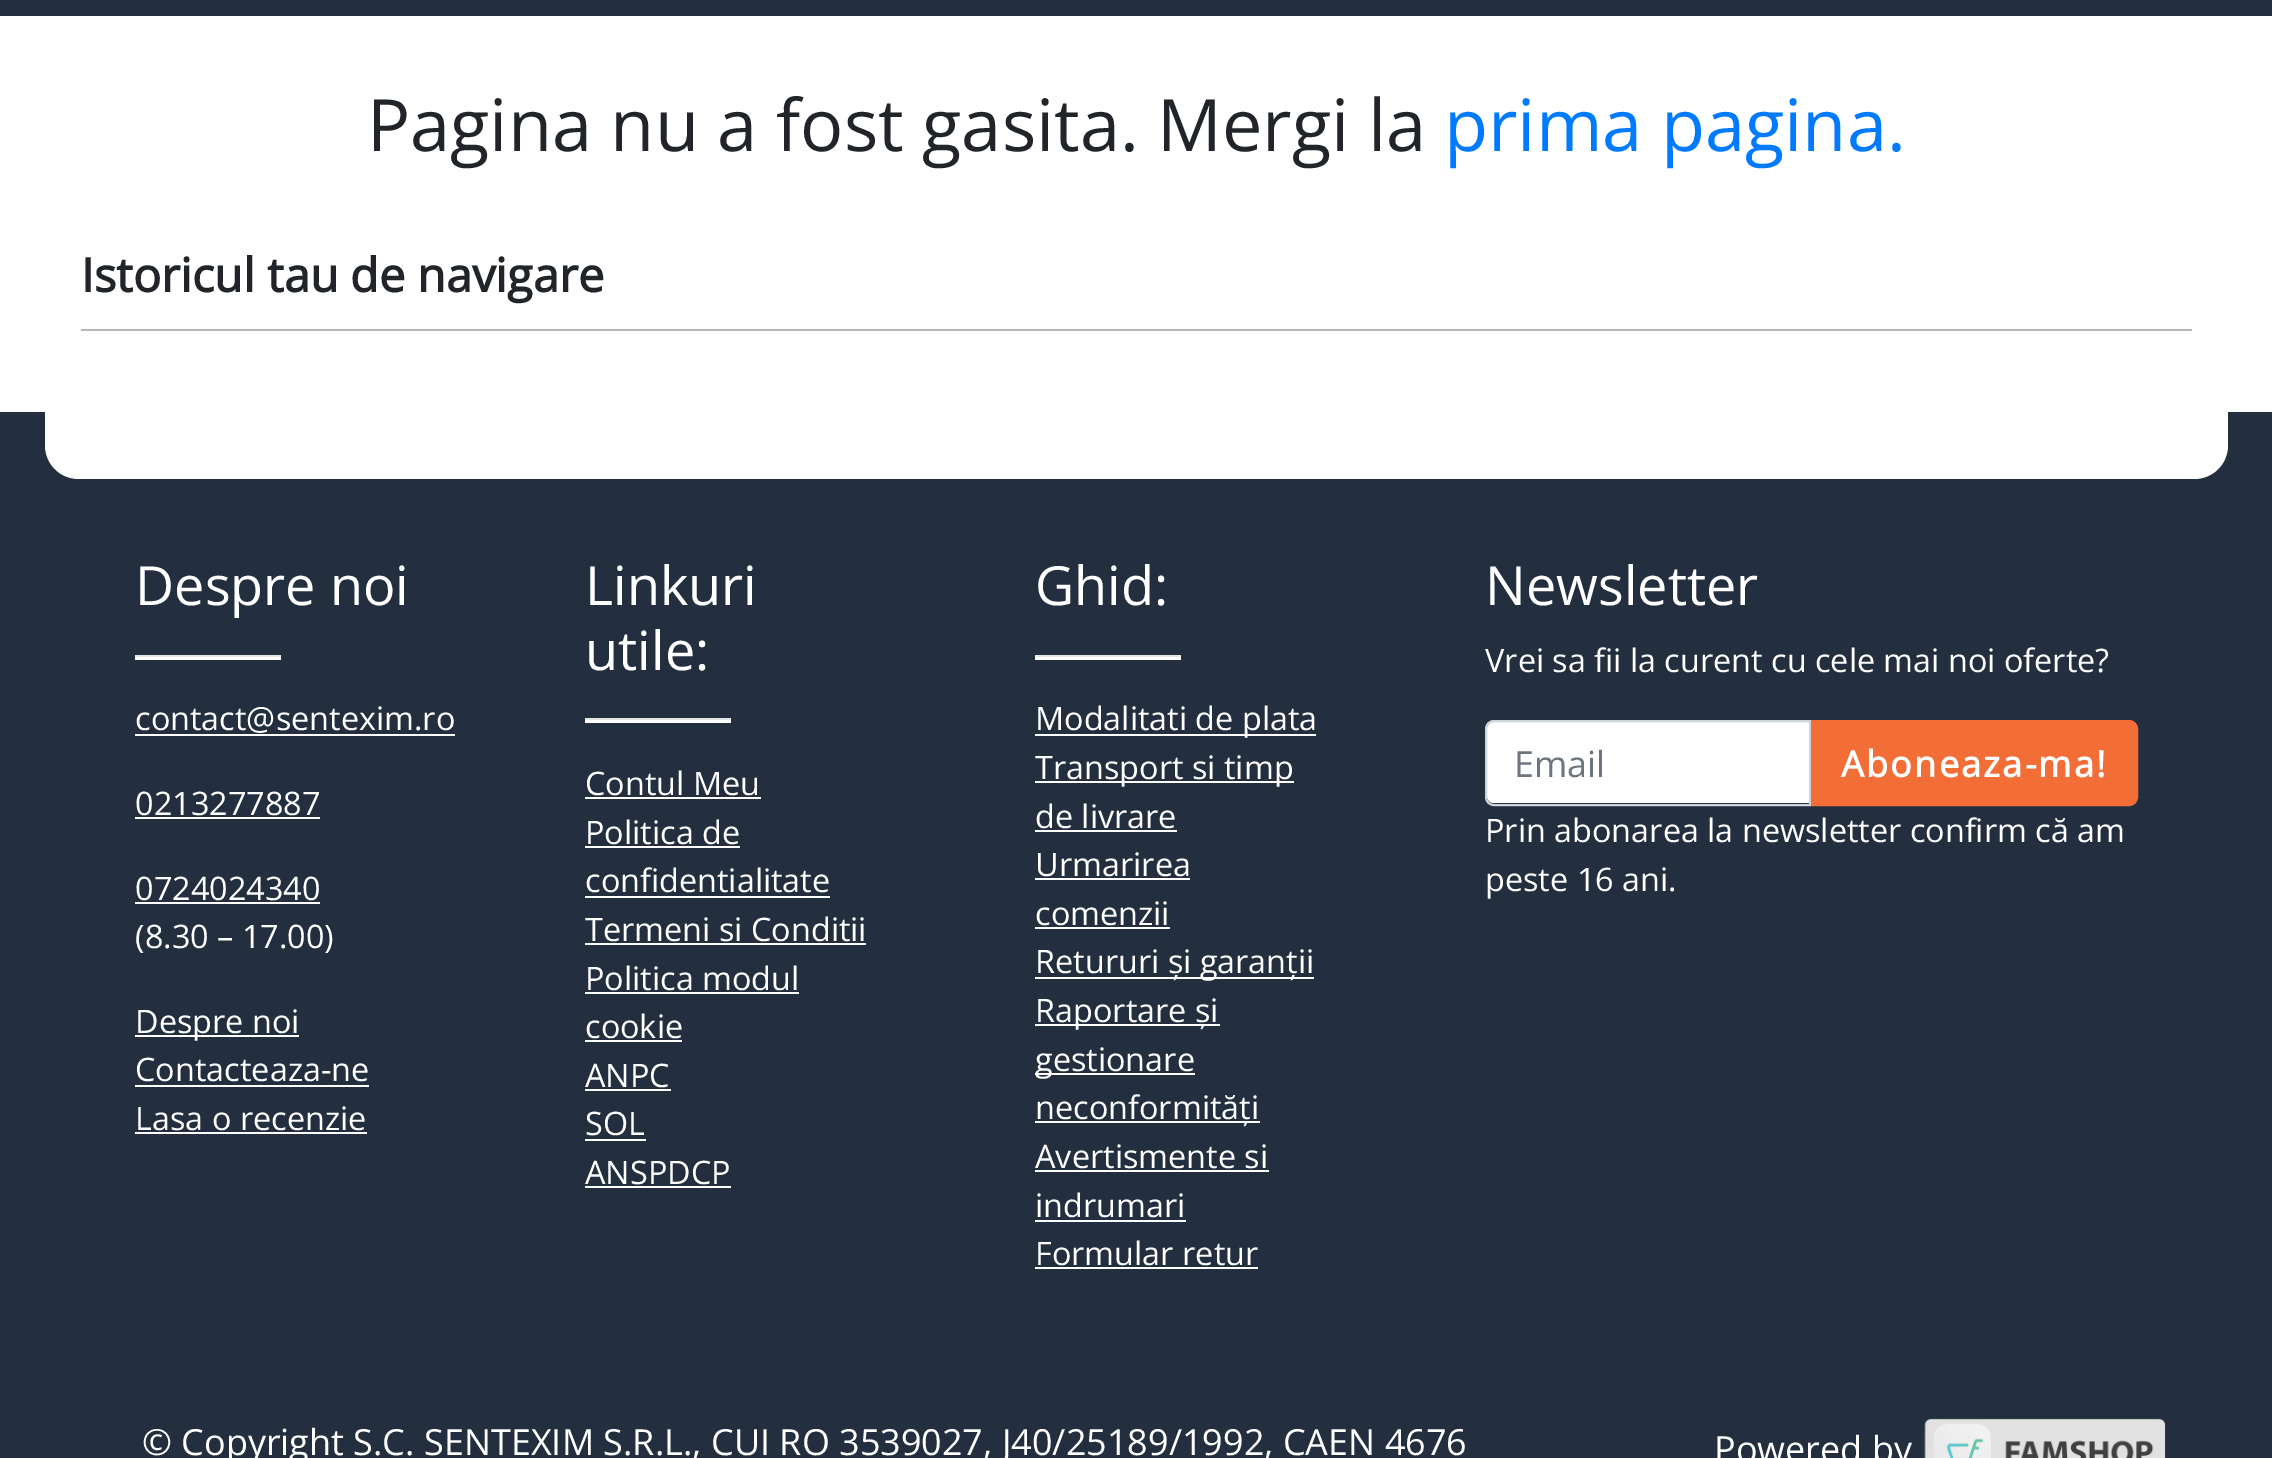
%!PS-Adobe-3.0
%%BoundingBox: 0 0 2272 1458
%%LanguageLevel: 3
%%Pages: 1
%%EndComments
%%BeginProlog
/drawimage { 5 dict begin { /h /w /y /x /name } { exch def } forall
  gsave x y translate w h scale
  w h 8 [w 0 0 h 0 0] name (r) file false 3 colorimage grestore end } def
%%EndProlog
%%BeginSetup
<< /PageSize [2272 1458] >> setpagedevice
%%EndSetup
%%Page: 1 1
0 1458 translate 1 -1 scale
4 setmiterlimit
1 setgray
0 0 2272 1458 rectfill
0.137 0.184 0.243 setrgbcolor
0 0 2272 16 rectfill
0 412 2272 1046 rectfill
1 setgray
newpath 45 241 moveto 2228 241 lineto 2228 445 lineto 2228 464 2213 479 2194 479 curveto 79 479 lineto 60 479 45 464 45 445 curveto closepath fill
0.718 setgray
81 329 2111 2 rectfill
1 setgray
135 657 146 3 rectfill
0.902 setgray
135 655 146 2 rectfill
1 setgray
135 734 320 2 rectfill
135 817 185 2 rectfill
135 902 185 2 rectfill
135 1035 164 2 rectfill
135 1085 234 2 rectfill
135 1132 232 2 rectfill
585 720 146 3 rectfill
0.902 setgray
585 718 146 2 rectfill
1 setgray
585 797 176 2 rectfill
585 846 155 2 rectfill
585 896 245 2 rectfill
585 943 281 2 rectfill
585 992 214 2 rectfill
585 1040 97 2 rectfill
585 1089 86 2 rectfill
585 1139 61 2 rectfill
585 1186 146 2 rectfill
1035 657 146 3 rectfill
0.902 setgray
1035 655 146 2 rectfill
1 setgray
1035 734 281 2 rectfill
1035 781 259 2 rectfill
1035 830 142 2 rectfill
1035 878 155 2 rectfill
1035 927 135 2 rectfill
1035 977 279 2 rectfill
1035 1024 185 2 rectfill
1035 1073 160 2 rectfill
1035 1121 225 2 rectfill
1035 1170 234 2 rectfill
1035 1220 151 2 rectfill
1035 1267 223 2 rectfill
newpath 1494 722 moveto 1809 722 lineto 1809 803 lineto 1494 803 lineto 1490 803 1487 800 1487 796 curveto 1487 729 lineto 1487 725 1490 722 1494 722 curveto closepath fill
0.808 0.831 0.855 setrgbcolor
2 setlinewidth
newpath 1494 721 moveto 1810 721 lineto 1810 805 lineto 1494 805 lineto 1489.5 805 1486 801.5 1486 797 curveto 1486 729 lineto 1486 724.5 1489.5 721 1494 721 curveto closepath stroke
0.949 0.431 0.212 setrgbcolor
newpath 1812 721 moveto 2129 721 lineto 2133.5 721 2137 724.5 2137 729 curveto 2137 797 lineto 2137 801.5 2133.5 805 2129 805 curveto 1812 805 lineto closepath gsave fill grestore
stroke
(images/1.raw) 1924 1418 242 40 drawimage
/OpenSans-Regular [72 0 0 -72 0 0] selectfont
0.129 0.145 0.161 setrgbcolor
367 151 moveto (Pagina nu a fost gasita. Mergi la) show
0 0.482 1 setrgbcolor
1444 151 moveto (prima pagina.) show
/OpenSans-Bold [46.75 0 0 -46.75 0 0] selectfont
0.129 0.145 0.161 setrgbcolor
81 292 moveto (Istoricul tau de navigare) show
/OpenSans-Regular [54 0 0 -54 0 0] selectfont
1 setgray
135 605 moveto (Despre noi) show
/OpenSans-Regular [32.4 0 0 -32.4 0 0] selectfont
135 730 moveto (contact@sentexim.ro) show
135 815 moveto (0213277887) show
135 900 moveto (0724024340) show
135 948 moveto (\(8.30 – 17.00\)) show
135 1033 moveto (Despre noi) show
135 1081 moveto (Contacteaza-ne) show
135 1130 moveto (Lasa o recenzie) show
/OpenSans-Regular [54 0 0 -54 0 0] selectfont
585 605 moveto (Linkuri) show
585 670 moveto (utile:) show
/OpenSans-Regular [32.4 0 0 -32.4 0 0] selectfont
585 795 moveto (Contul Meu) show
585 844 moveto (Politica de) show
585 892 moveto (confidentialitate) show
585 941 moveto (Termeni si Conditii) show
585 990 moveto (Politica modul) show
585 1038 moveto (cookie) show
585 1087 moveto (ANPC) show
585 1135 moveto (SOL) show
585 1184 moveto (ANSPDCP) show
/OpenSans-Regular [54 0 0 -54 0 0] selectfont
1035 605 moveto (Ghid:) show
/OpenSans-Regular [32.4 0 0 -32.4 0 0] selectfont
1035 730 moveto (Modalitati de plata) show
1035 779 moveto (Transport si timp) show
1035 828 moveto (de livrare) show
1035 876 moveto (Urmarirea) show
1035 925 moveto (comenzii) show
1035 973 moveto (Retururi și garanții) show
1035 1022 moveto (Raportare și) show
1035 1071 moveto (gestionare) show
1035 1119 moveto (neconformități) show
1035 1168 moveto (Avertismente si) show
1035 1217 moveto (indrumari) show
1035 1265 moveto (Formular retur) show
/OpenSans-Regular [54 0 0 -54 0 0] selectfont
1485 605 moveto (Newsletter) show
/OpenSans-Regular [32.4 0 0 -32.4 0 0] selectfont
1485 672 moveto (Vrei sa fii la curent cu cele mai noi oferte?) show
/OpenSans-Regular [36 0 0 -36 0 0] selectfont
0.424 0.459 0.49 setrgbcolor
1514 777 moveto (Email) show
/OpenSans-Bold [36 0 0 -36 0 0] selectfont
1 setgray
1841 777 moveto 2.25 0 (Aboneaza-ma!) ashow
/OpenSans-Regular [32.4 0 0 -32.4 0 0] selectfont
1485 842 moveto (Prin abonarea la newsletter confirm că am) show
1485 891 moveto (peste 16 ani.) show
/OpenSans-Regular [36 0 0 -36 0 0] selectfont
142 1455 moveto (© Copyright S.C. SENTEXIM S.R.L., CUI RO 3539027, J40/25189/1992, CAEN 4676) show
1714 1462 moveto (Powered by) show
showpage
%%EOF
